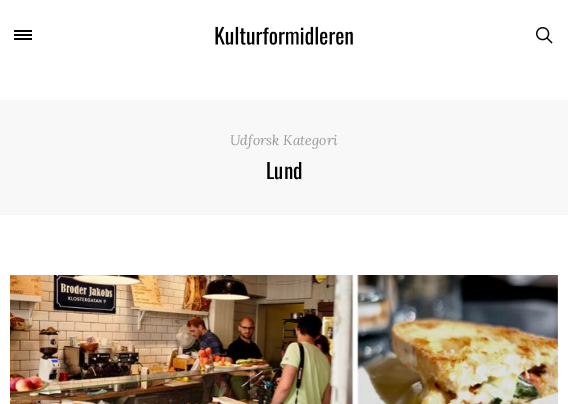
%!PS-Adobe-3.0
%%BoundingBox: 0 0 568 404
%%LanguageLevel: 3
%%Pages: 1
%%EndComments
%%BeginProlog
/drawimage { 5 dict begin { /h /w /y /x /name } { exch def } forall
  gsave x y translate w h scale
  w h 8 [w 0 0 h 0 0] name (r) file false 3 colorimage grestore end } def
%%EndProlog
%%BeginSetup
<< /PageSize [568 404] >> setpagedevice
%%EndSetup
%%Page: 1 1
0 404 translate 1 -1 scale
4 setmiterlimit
1 setgray
0 0 568 404 rectfill
0 setgray
14 30 18 2 rectfill
14 34 18 2 rectfill
14 38 18 2 rectfill
(images/1.raw) 215 26 138 19 drawimage
(images/2.raw) 536 27 17 17 drawimage
0.973 setgray
0 100 568 115 rectfill
(images/3.raw) 10 275 548 129 drawimage
/Lora-Italic [14 0 0 -14 0 0] selectfont
0.6 setgray
230 145 moveto (Udforsk Kategori) show
/Oswald-Regular [21 0 0 -21 0 0] selectfont
0 setgray
266 179 moveto (Lund) show
showpage
%%EOF
